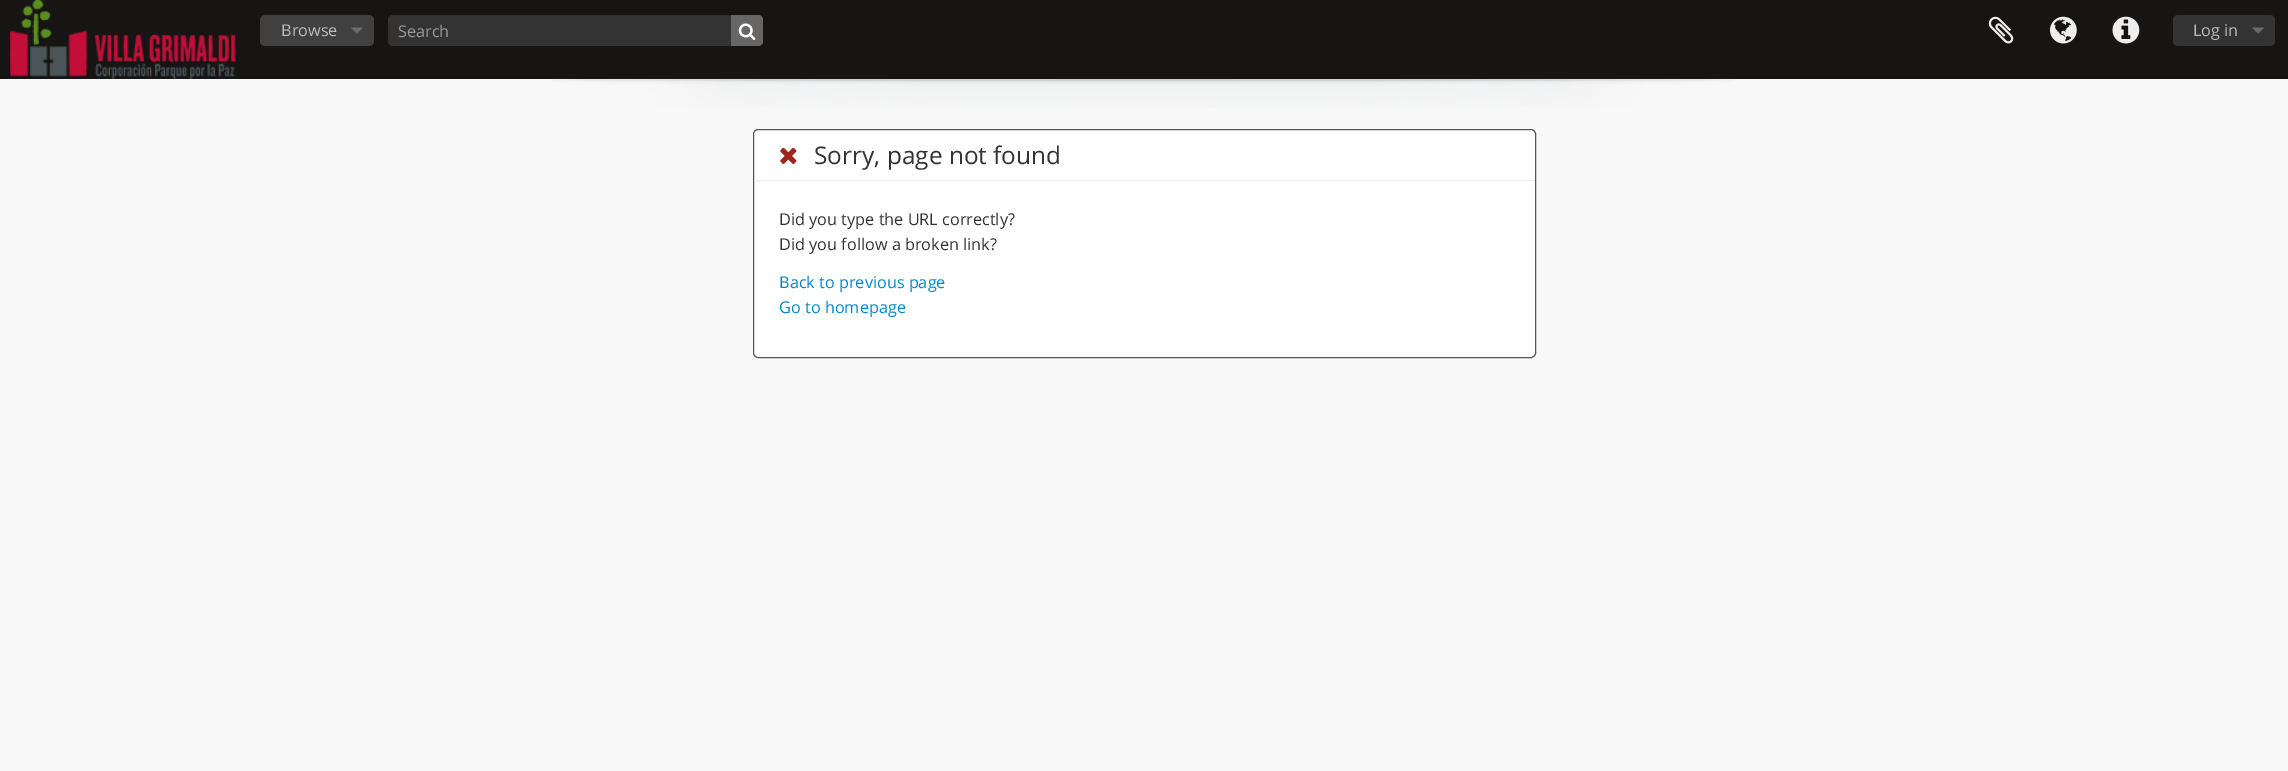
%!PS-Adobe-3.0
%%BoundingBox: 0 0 2288 771
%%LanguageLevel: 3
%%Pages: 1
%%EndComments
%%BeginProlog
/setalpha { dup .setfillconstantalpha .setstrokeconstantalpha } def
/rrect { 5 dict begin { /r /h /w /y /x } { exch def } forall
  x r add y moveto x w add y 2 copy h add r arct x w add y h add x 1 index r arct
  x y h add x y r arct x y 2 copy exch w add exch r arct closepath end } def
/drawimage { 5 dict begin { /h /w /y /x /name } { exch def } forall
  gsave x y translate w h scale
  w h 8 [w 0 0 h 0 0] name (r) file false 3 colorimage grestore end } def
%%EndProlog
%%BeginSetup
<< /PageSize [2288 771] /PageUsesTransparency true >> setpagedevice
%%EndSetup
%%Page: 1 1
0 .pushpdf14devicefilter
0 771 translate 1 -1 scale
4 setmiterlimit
0.973 setgray
0 0 2288 771 rectfill
0.086 0.082 0.078 setrgbcolor
0 0 2288 79 rectfill
(images/1.raw) 10 0 225 79 drawimage
0.251 setgray
260 15 114 31 5 rrect fill
(images/2.raw) 351 27 12 7 drawimage
0.2 setgray
388 15 375 31 5 rrect fill
0.07 setalpha
0 setgray
newpath 392 16 moveto 758 16 lineto 760 16 762 18 762 21 curveto 762 42 lineto 762 45 lineto 762 44 763 42 763 41 curveto 763 20 lineto 763 17 761 15 758 15 curveto 393 15 lineto 390 15 388 17 388 20 curveto 388 21 lineto 388 18 390 16 392 16 curveto closepath fill
1 setalpha
0.4 setgray
newpath 731 15 moveto 758 15 lineto 761 15 763 17 763 20 curveto 763 41 lineto 763 44 761 46 758 46 curveto 731 46 lineto closepath fill
(images/3.raw) 738 23 18 17 drawimage
(images/4.raw) 1988 16 26 28 drawimage
(images/5.raw) 2050 16 27 28 drawimage
(images/6.raw) 2112 16 28 28 drawimage
0.2 setgray
2173 15 102 31 5 rrect fill
(images/7.raw) 2252 27 12 7 drawimage
(images/8.raw) 552 79 1183 29 drawimage
1 setgray
753.5 129.5 782 228 4.5 rrect gsave fill grestore
0.333 setgray
stroke
0.933 setgray
754 180 781 1 rectfill
(images/9.raw) 780 147 17 17 drawimage
/OpenSans-Regular [16.25 0 0 -16.25 0 0] selectfont
0.733 setgray
281 36 moveto (Browse) show
0.6 setgray
398 37 moveto (Search) show
0.733 setgray
2193 36 moveto (Log in) show
/OpenSans-Regular [24.4 0 0 -24.4 0 0] selectfont
0.2 setgray
814 164 moveto (Sorry, page not found) show
/OpenSans-Regular [16.25 0 0 -16.25 0 0] selectfont
779 225 moveto (Did you type the URL correctly?) show
779 250 moveto (Did you follow a broken link?) show
0 0.533 0.8 setrgbcolor
779 288 moveto (Back to previous page) show
779 313 moveto (Go to homepage) show
.poppdf14devicefilter showpage
%%EOF
